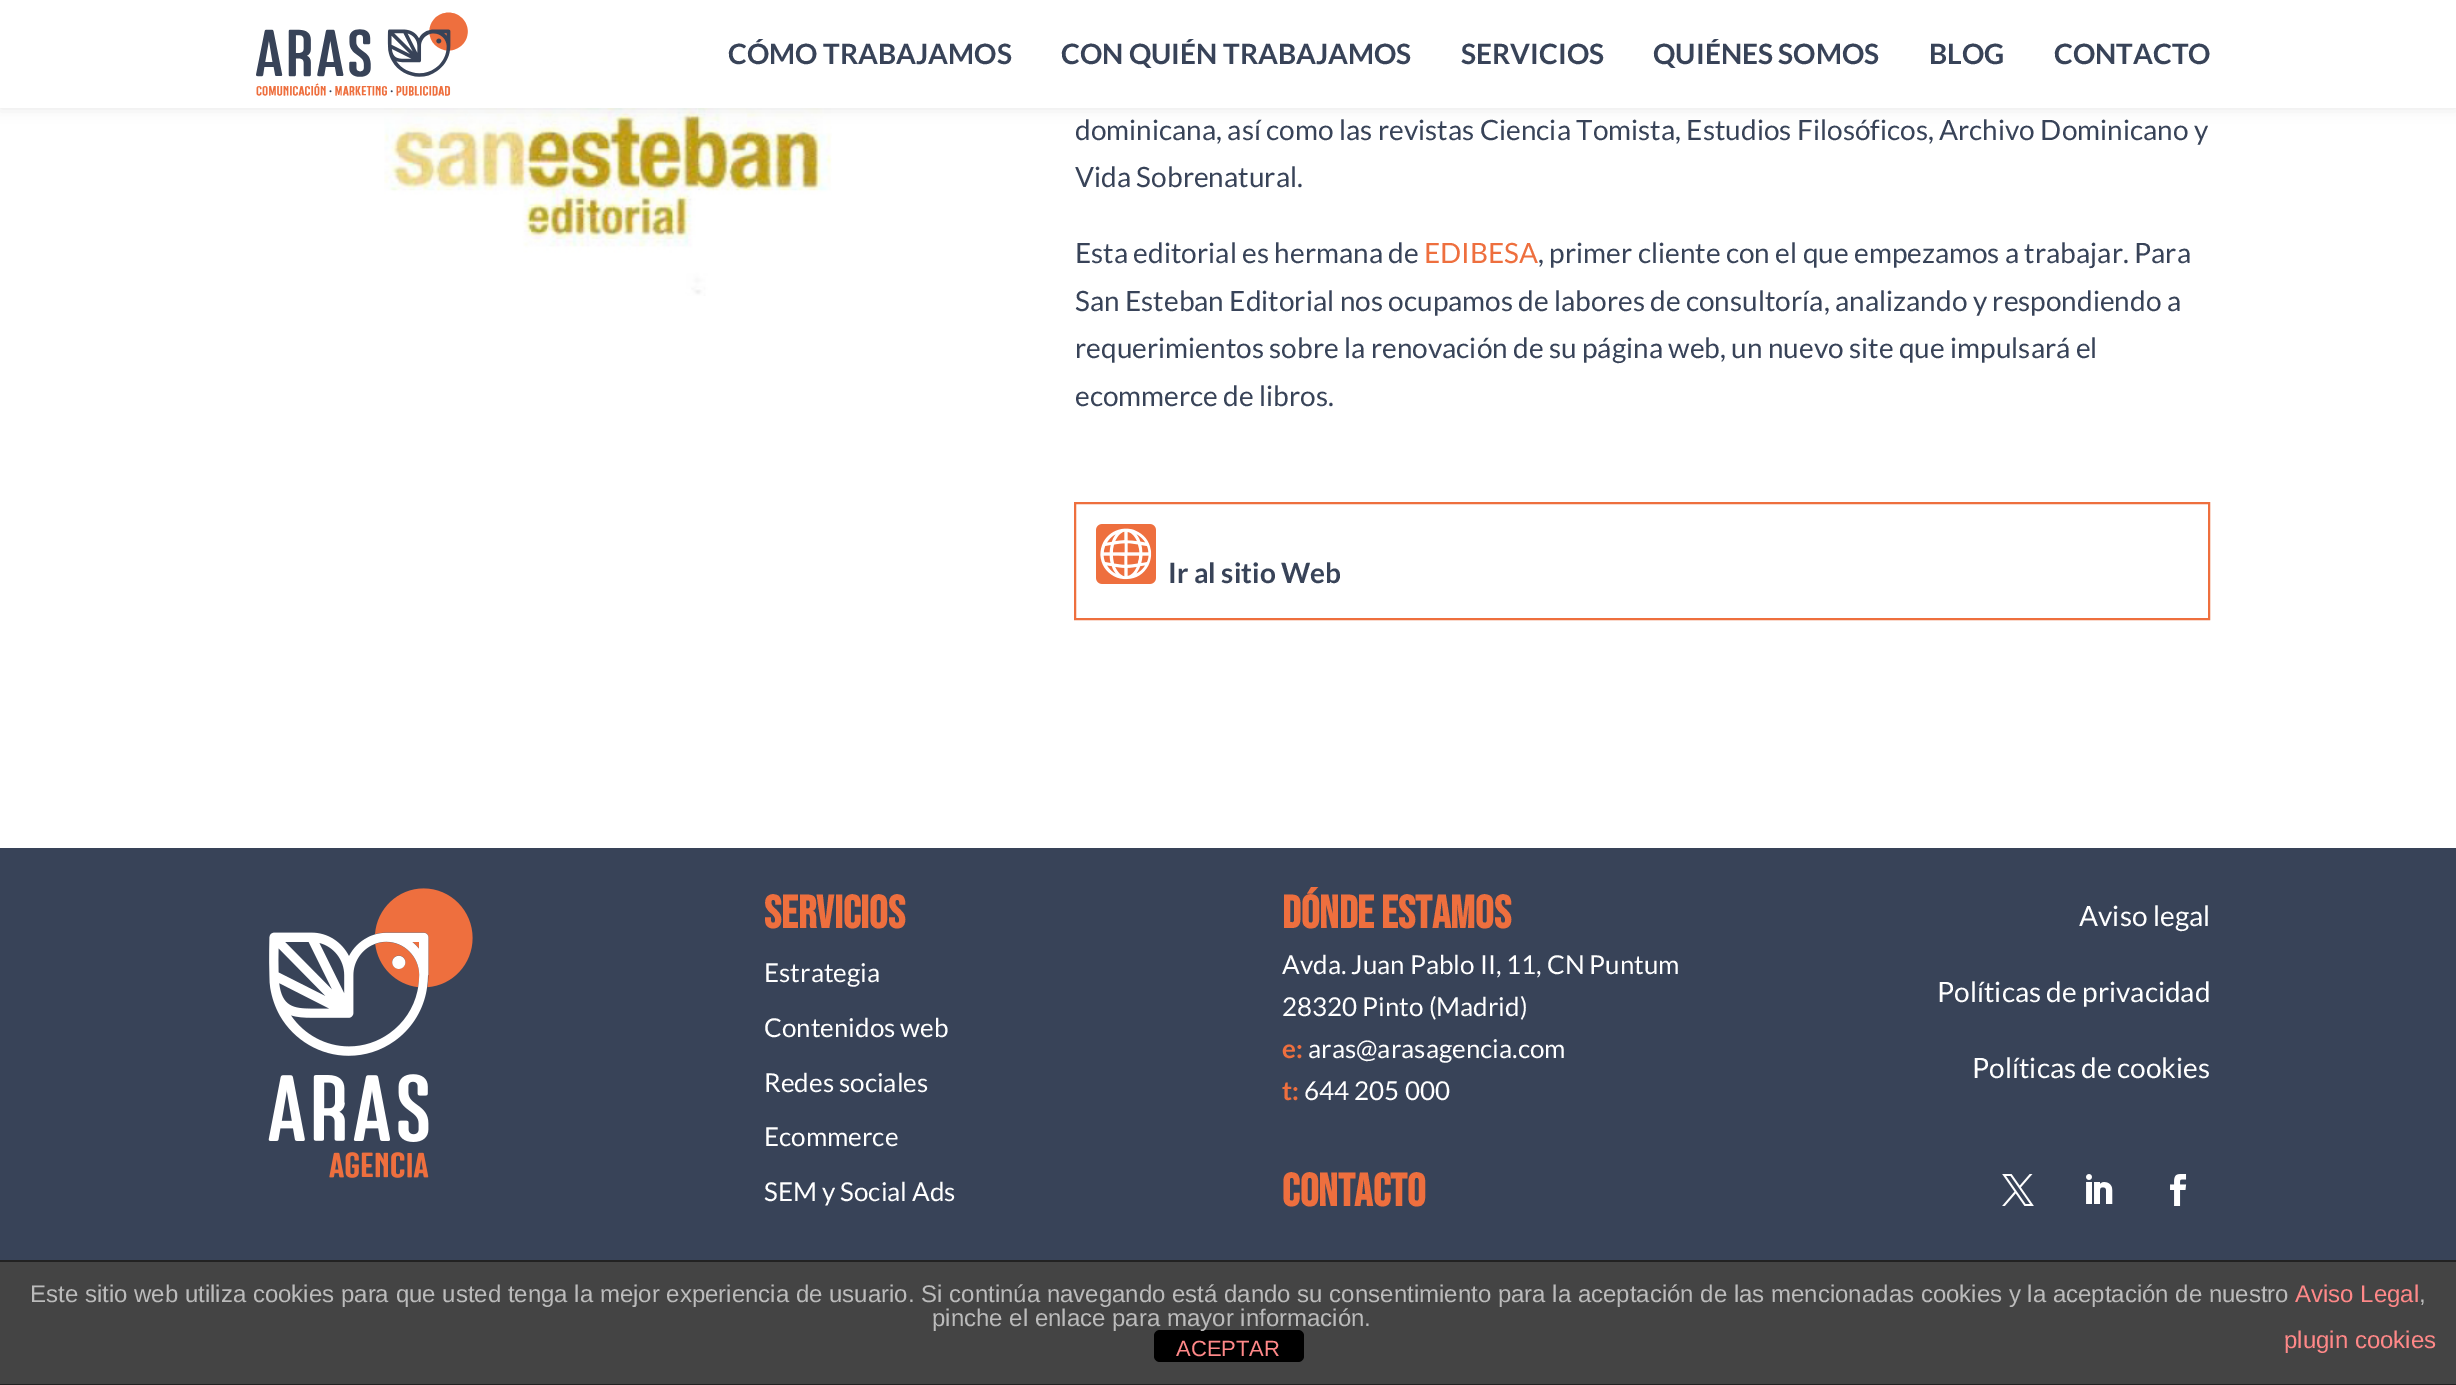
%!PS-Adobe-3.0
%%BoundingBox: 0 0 2456 1385
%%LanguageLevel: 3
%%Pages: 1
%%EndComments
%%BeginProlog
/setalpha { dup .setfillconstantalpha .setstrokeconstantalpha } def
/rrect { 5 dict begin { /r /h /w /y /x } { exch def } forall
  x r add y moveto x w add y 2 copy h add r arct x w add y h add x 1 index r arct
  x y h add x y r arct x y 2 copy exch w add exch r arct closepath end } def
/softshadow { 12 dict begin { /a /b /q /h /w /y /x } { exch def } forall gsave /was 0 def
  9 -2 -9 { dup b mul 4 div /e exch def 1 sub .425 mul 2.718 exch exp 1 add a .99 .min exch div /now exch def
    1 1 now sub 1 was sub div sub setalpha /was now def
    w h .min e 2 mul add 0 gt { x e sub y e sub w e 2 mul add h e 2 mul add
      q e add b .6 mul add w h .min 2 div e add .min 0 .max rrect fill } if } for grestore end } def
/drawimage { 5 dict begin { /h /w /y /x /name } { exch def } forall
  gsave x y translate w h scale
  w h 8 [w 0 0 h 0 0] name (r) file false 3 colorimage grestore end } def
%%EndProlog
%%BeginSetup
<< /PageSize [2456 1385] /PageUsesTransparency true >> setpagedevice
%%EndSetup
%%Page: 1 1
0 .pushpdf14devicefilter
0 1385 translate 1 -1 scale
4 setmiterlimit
1 setgray
0 0 2456 1385 rectfill
(images/2.raw) 384 108 448 188 drawimage
0 setgray
0 0 2456 108 0 7 0.1 softshadow
1 setgray
0 0 2456 108 rectfill
(images/1.raw) 256 12 212 84 drawimage
0.933 0.435 0.243 setrgbcolor
2 setlinewidth
1075 503 1134 116 rectstroke
(images/3.raw) 1096 524 60 60 drawimage
0.22 0.263 0.345 setrgbcolor
0 848 2456 412 rectfill
(images/4.raw) 268 888 205 290 drawimage
(images/5.raw) 2002 1174 32 32 drawimage
(images/6.raw) 2086 1174 27 30 drawimage
(images/7.raw) 2170 1174 17 32 drawimage
0.267 setgray
0 1262 2456 122 rectfill
0.133 setgray
0 1260 2456 2 rectfill
0 1384 2456 1 rectfill
0 setgray
1154 1330 150 32 6 rrect fill
/Lato-Bold [28 0 0 -28 0 0] selectfont
0.22 0.263 0.345 setrgbcolor
728 64 moveto (CÓMO TRABAJAMOS) show
1061 64 moveto (CON QUIÉN TRABAJAMOS) show
1461 64 moveto (SERVICIOS) show
1653 64 moveto (QUIÉNES SOMOS) show
1929 64 moveto (BLOG) show
2054 64 moveto (CONTACTO) show
/Lato-Regular [28 0 0 -28 0 0] selectfont
1075 140 moveto (dominicana, así como las revistas Ciencia Tomista, Estudios Filosóficos, Archivo Dominicano y) show
1075 187 moveto (Vida Sobrenatural.) show
1075 263 moveto (Esta editorial es hermana de) show
0.933 0.435 0.243 setrgbcolor
1424 263 moveto (EDIBESA) show
0.22 0.263 0.345 setrgbcolor
1538 263 moveto (, primer cliente con el que empezamos a trabajar. Para) show
1075 311 moveto (San Esteban Editorial nos ocupamos de labores de consultoría, analizando y respondiendo a) show
1075 358 moveto (requerimientos sobre la renovación de su página web, un nuevo site que impulsará el) show
1075 406 moveto (ecommerce de libros.) show
/Lato-Bold [28 0 0 -28 0 0] selectfont
1168 583 moveto (Ir al sitio Web) show
/BebasNeue-Bold [46 0 0 -46 0 0] selectfont
0.933 0.435 0.243 setrgbcolor
764 928 moveto (Servicios) show
/Lato-Regular [26 0 0 -26 0 0] selectfont
1 setgray
764 982 moveto (Estrategia) show
764 1037 moveto (Contenidos web) show
764 1092 moveto (Redes sociales) show
764 1146 moveto (Ecommerce) show
764 1201 moveto (SEM y Social Ads) show
/BebasNeue-Bold [46 0 0 -46 0 0] selectfont
0.933 0.435 0.243 setrgbcolor
1282 928 moveto (Dónde estamos) show
/Lato-Regular [26 0 0 -26 0 0] selectfont
1 setgray
1282 974 moveto (Avda. Juan Pablo II, 11, CN Puntum) show
1282 1016 moveto (28320 Pinto \(Madrid\)) show
/Lato-Bold [26 0 0 -26 0 0] selectfont
0.933 0.435 0.243 setrgbcolor
1282 1058 moveto (e:) show
/Lato-Regular [26 0 0 -26 0 0] selectfont
1 setgray
1308 1058 moveto (aras@arasagencia.com) show
/Lato-Bold [26 0 0 -26 0 0] selectfont
0.933 0.435 0.243 setrgbcolor
1282 1100 moveto (t:) show
/Lato-Regular [26 0 0 -26 0 0] selectfont
1 setgray
1304 1100 moveto (644 205 000) show
/BebasNeue-Bold [46 0 0 -46 0 0] selectfont
0.933 0.435 0.243 setrgbcolor
1282 1206 moveto (contacto) show
/Lato-Regular [28 0 0 -28 0 0] selectfont
1 setgray
2079 926 moveto (Aviso legal) show
1937 1002 moveto (Políticas de privacidad) show
1972 1078 moveto (Políticas de cookies) show
/LiberationSans-Regular [24 0 0 -24 0 0] selectfont
0.733 setgray
30 1302 moveto (Este sitio web utiliza cookies para que usted tenga la mejor experiencia de usuario. Si continúa navegando está dando su consentimiento para la aceptación de las mencionadas cookies y la aceptación de nuestro) show
1 0.533 0.533 setrgbcolor
2295 1302 moveto (Aviso Legal) show
0.733 setgray
2419 1302 moveto (,) show
932 1326 moveto (pinche el enlace para mayor información.) show
1 0.533 0.533 setrgbcolor
2284 1348 moveto (plugin cookies) show
/LiberationSans-Regular [22 0 0 -22 0 0] selectfont
1176 1356 moveto (ACEPTAR) show
.poppdf14devicefilter showpage
%%EOF
